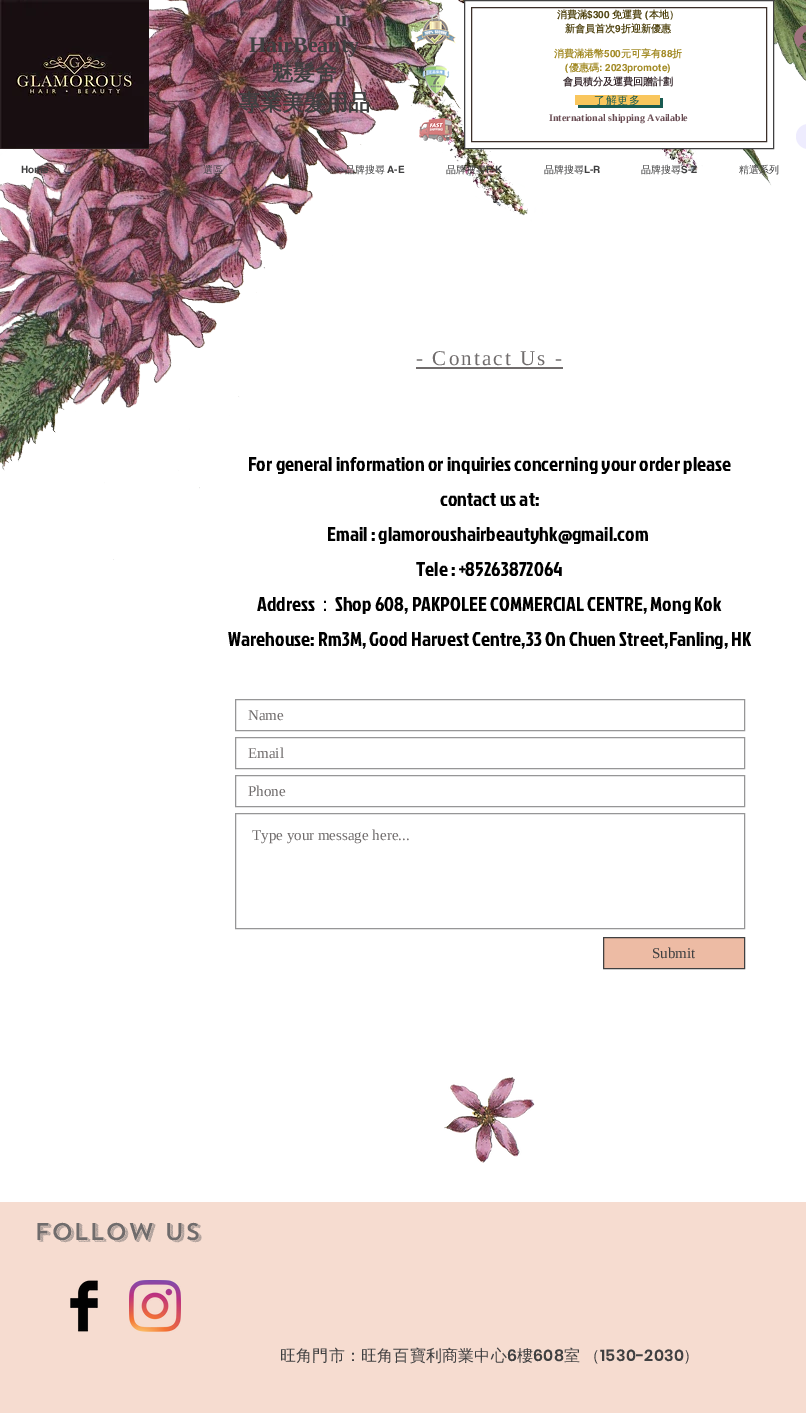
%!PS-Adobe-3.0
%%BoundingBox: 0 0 806 1413
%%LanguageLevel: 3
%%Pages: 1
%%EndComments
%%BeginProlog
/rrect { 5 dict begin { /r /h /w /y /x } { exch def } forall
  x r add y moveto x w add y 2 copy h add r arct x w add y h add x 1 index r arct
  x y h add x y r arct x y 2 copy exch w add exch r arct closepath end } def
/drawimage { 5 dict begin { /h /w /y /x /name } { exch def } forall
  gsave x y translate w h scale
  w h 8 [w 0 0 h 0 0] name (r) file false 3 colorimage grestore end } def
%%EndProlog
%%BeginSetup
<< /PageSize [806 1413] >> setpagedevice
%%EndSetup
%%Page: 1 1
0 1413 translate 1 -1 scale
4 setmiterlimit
1 setgray
0 0 806 1413 rectfill
(images/1.raw) 0 0 806 560 drawimage
(images/2.raw) 0 0 149 149 drawimage
(images/3.raw) 415 14 41 31 drawimage
newpath 464.5 0.5 moveto 773.5 0.5 lineto 773.5 148.5 lineto 464.5 148.5 lineto closepath gsave fill grestore
0.251 0.251 0.255 setrgbcolor
stroke
0.231 0.184 0.161 setrgbcolor
471.5 7.5 295 134 rectstroke
0.098 0.357 0.322 setrgbcolor
newpath 578 105 moveto 578 108 lineto 663 108 lineto 663 98 lineto 660 98 lineto 660 105 lineto closepath fill
0.976 0.776 0.365 setrgbcolor
575 95 85 10 rectfill
(images/4.raw) 794 25 12 26 drawimage
(images/5.raw) 422 65 28 30 drawimage
(images/6.raw) 419 118 36 25 drawimage
0.933 0.925 0.996 setrgbcolor
796 124 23 25 12.5 rrect fill
0.439 0.424 0.424 setrgbcolor
416 367 147 2 rectfill
0.588 0.588 0.592 setrgbcolor
235.5 699.5 509 31 rectstroke
235.5 737.5 509 31 rectstroke
235.5 775.5 509 31 rectstroke
235.5 813.5 509 115 rectstroke
0.929 0.733 0.643 setrgbcolor
newpath 603.5 937.5 moveto 744.5 937.5 lineto 744.5 968.5 lineto 603.5 968.5 lineto closepath gsave fill grestore
0.251 0.251 0.255 setrgbcolor
stroke
(images/7.raw) 444 1077 91 86 drawimage
0.965 0.863 0.816 setrgbcolor
0 1202 806 211 rectfill
(images/8.raw) 70 1280 28 52 drawimage
(images/9.raw) 129 1280 52 52 drawimage
/LiberationSerif-Bold [22 0 0 -22 0 0] selectfont
0.251 0.251 0.255 setrgbcolor
335 26 moveto (u) show
249 52 moveto (HairBeauty) show
/WenQuanYiZenHei-Bold [22 0 0 -22 0 0] selectfont
271 80 moveto (魅髮舍) show
238 110 moveto (專業美髮用品) show
/WenQuanYiZenHei-Bold [10 0 0 -10 0 0] selectfont
0.318 0.271 0.071 setrgbcolor
557 18 moveto (消費滿) show
/helvetica-Bold [10 0 0 -10 0 0] selectfont
587 18 moveto ($300) show
/WenQuanYiZenHei-Bold [10 0 0 -10 0 0] selectfont
612 18 moveto (免運費) show
/helvetica-Bold [10 0 0 -10 0 0] selectfont
645 18 moveto (\() show
/WenQuanYiZenHei-Bold [10 0 0 -10 0 0] selectfont
649 18 moveto (本地）) show
565 32 moveto (新會員首次) show
/helvetica-Bold [10 0 0 -10 0 0] selectfont
615 32 moveto (9) show
/WenQuanYiZenHei-Bold [10 0 0 -10 0 0] selectfont
621 32 moveto (折迎新優惠) show
0.635 0.541 0.141 setrgbcolor
554 57 moveto (消費滿港幣) show
/helvetica-Bold [10 0 0 -10 0 0] selectfont
604 57 moveto (500) show
/WenQuanYiZenHei-Bold [10 0 0 -10 0 0] selectfont
621 57 moveto (元可享有) show
/helvetica-Bold [10 0 0 -10 0 0] selectfont
661 57 moveto (88) show
/WenQuanYiZenHei-Bold [10 0 0 -10 0 0] selectfont
672 57 moveto (折) show
/helvetica-Bold [10 0 0 -10 0 0] selectfont
565 71 moveto (\() show
/WenQuanYiZenHei-Bold [10 0 0 -10 0 0] selectfont
569 71 moveto (優惠碼) show
/helvetica-Bold [10 0 0 -10 0 0] selectfont
599 71 moveto (: 2023promote\)) show
/WenQuanYiZenHei-Bold [10 0 0 -10 0 0] selectfont
0.208 0.149 0.165 setrgbcolor
563 85 moveto (會員積分及運費回贈計劃) show
/LiberationSerif-Bold [10 0 0 -10 0 0] selectfont
0.412 0.298 0.325 setrgbcolor
549 121 moveto (International shipping Available) show
gsave
594 95 47 10 rectclip
/WenQuanYiZenHei-Medium [11 0 0 -11 0 0] selectfont
0.098 0.357 0.322 setrgbcolor
594 104 moveto 0.5 0 (了解更多) ashow
grestore
/helvetica-Bold [10 0 0 -10 0 0] selectfont
0.251 0.251 0.255 setrgbcolor
21 173 moveto (Home) show
/WenQuanYiZenHei-Medium [10 0 0 -10 0 0] selectfont
203 173 moveto (選區) show
345 173 moveto (品牌搜尋) show
/helvetica-Bold [10 0 0 -10 0 0] selectfont
387 173 moveto (A-E) show
/WenQuanYiZenHei-Medium [10 0 0 -10 0 0] selectfont
446 173 moveto (品牌搜尋) show
/helvetica-Bold [10 0 0 -10 0 0] selectfont
486 173 moveto (F-K) show
/WenQuanYiZenHei-Medium [10 0 0 -10 0 0] selectfont
544 173 moveto (品牌搜尋) show
/helvetica-Bold [10 0 0 -10 0 0] selectfont
584 173 moveto (L-R) show
/WenQuanYiZenHei-Medium [10 0 0 -10 0 0] selectfont
641 173 moveto (品牌搜尋) show
/helvetica-Bold [10 0 0 -10 0 0] selectfont
681 173 moveto (S-Z) show
/WenQuanYiZenHei-Medium [10 0 0 -10 0 0] selectfont
739 173 moveto (精選系列) show
/LiberationSerif-Regular [21 0 0 -21 0 0] selectfont
0.439 0.424 0.424 setrgbcolor
416 365 moveto 2.1 0 (- Contact Us -) ashow
/JockeyOne-Regular [20 0 0 -20 0 0] selectfont
0 setgray
248 471 moveto (For general information or inquiries concerning your order please) show
440 506 moveto (contact us at:) show
327 541 moveto (Email : glamoroushairbeautyhk@gmail.com) show
416 576 moveto (Tele : +85263872064) show
257 611 moveto (Address) show
/WenQuanYiZenHei-Medium [20 0 0 -20 0 0] selectfont
315 611 moveto (：) show
/JockeyOne-Regular [20 0 0 -20 0 0] selectfont
335 611 moveto (Shop 608, PAKPOLEE COMMERCIAL CENTRE, Mong Kok) show
228 646 moveto (Warehouse: Rm3M, Good Harvest Centre,33 On Chuen Street,Fanling, HK) show
/LiberationSerif-Regular [15 0 0 -15 0 0] selectfont
0.439 0.424 0.424 setrgbcolor
248 720 moveto (Name) show
248 758 moveto (Email) show
248 796 moveto (Phone) show
252 840 moveto (Type your message here...) show
0.251 0.251 0.255 setrgbcolor
652 958 moveto (Submit) show
/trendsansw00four-Medium [24 0 0 -24 0 0] selectfont
0.439 0.424 0.424 setrgbcolor
34 1240 moveto (Follow Us) show
/WenQuanYiZenHei-Medium [16 0 0 -16 0 0] selectfont
0.251 0.251 0.255 setrgbcolor
280 1361 moveto 0.2 0 (旺角門市：旺角百寶利商業中心) ashow
/Poppins-SemiBold [16 0 0 -16 0 0] selectfont
507 1361 moveto 0.2 0 (6) ashow
/WenQuanYiZenHei-Medium [16 0 0 -16 0 0] selectfont
517 1361 moveto 0.2 0 (樓) ashow
/Poppins-SemiBold [16 0 0 -16 0 0] selectfont
533 1361 moveto 0.2 0 (608) ashow
/WenQuanYiZenHei-Medium [16 0 0 -16 0 0] selectfont
564 1361 moveto -1 0 32 0.2 0 (室 （) awidthshow
/Poppins-SemiBold [16 0 0 -16 0 0] selectfont
600 1361 moveto 0.2 0 (1530-2030) ashow
/WenQuanYiZenHei-Medium [16 0 0 -16 0 0] selectfont
683 1361 moveto 0.2 0 (）) ashow
showpage
%%EOF
